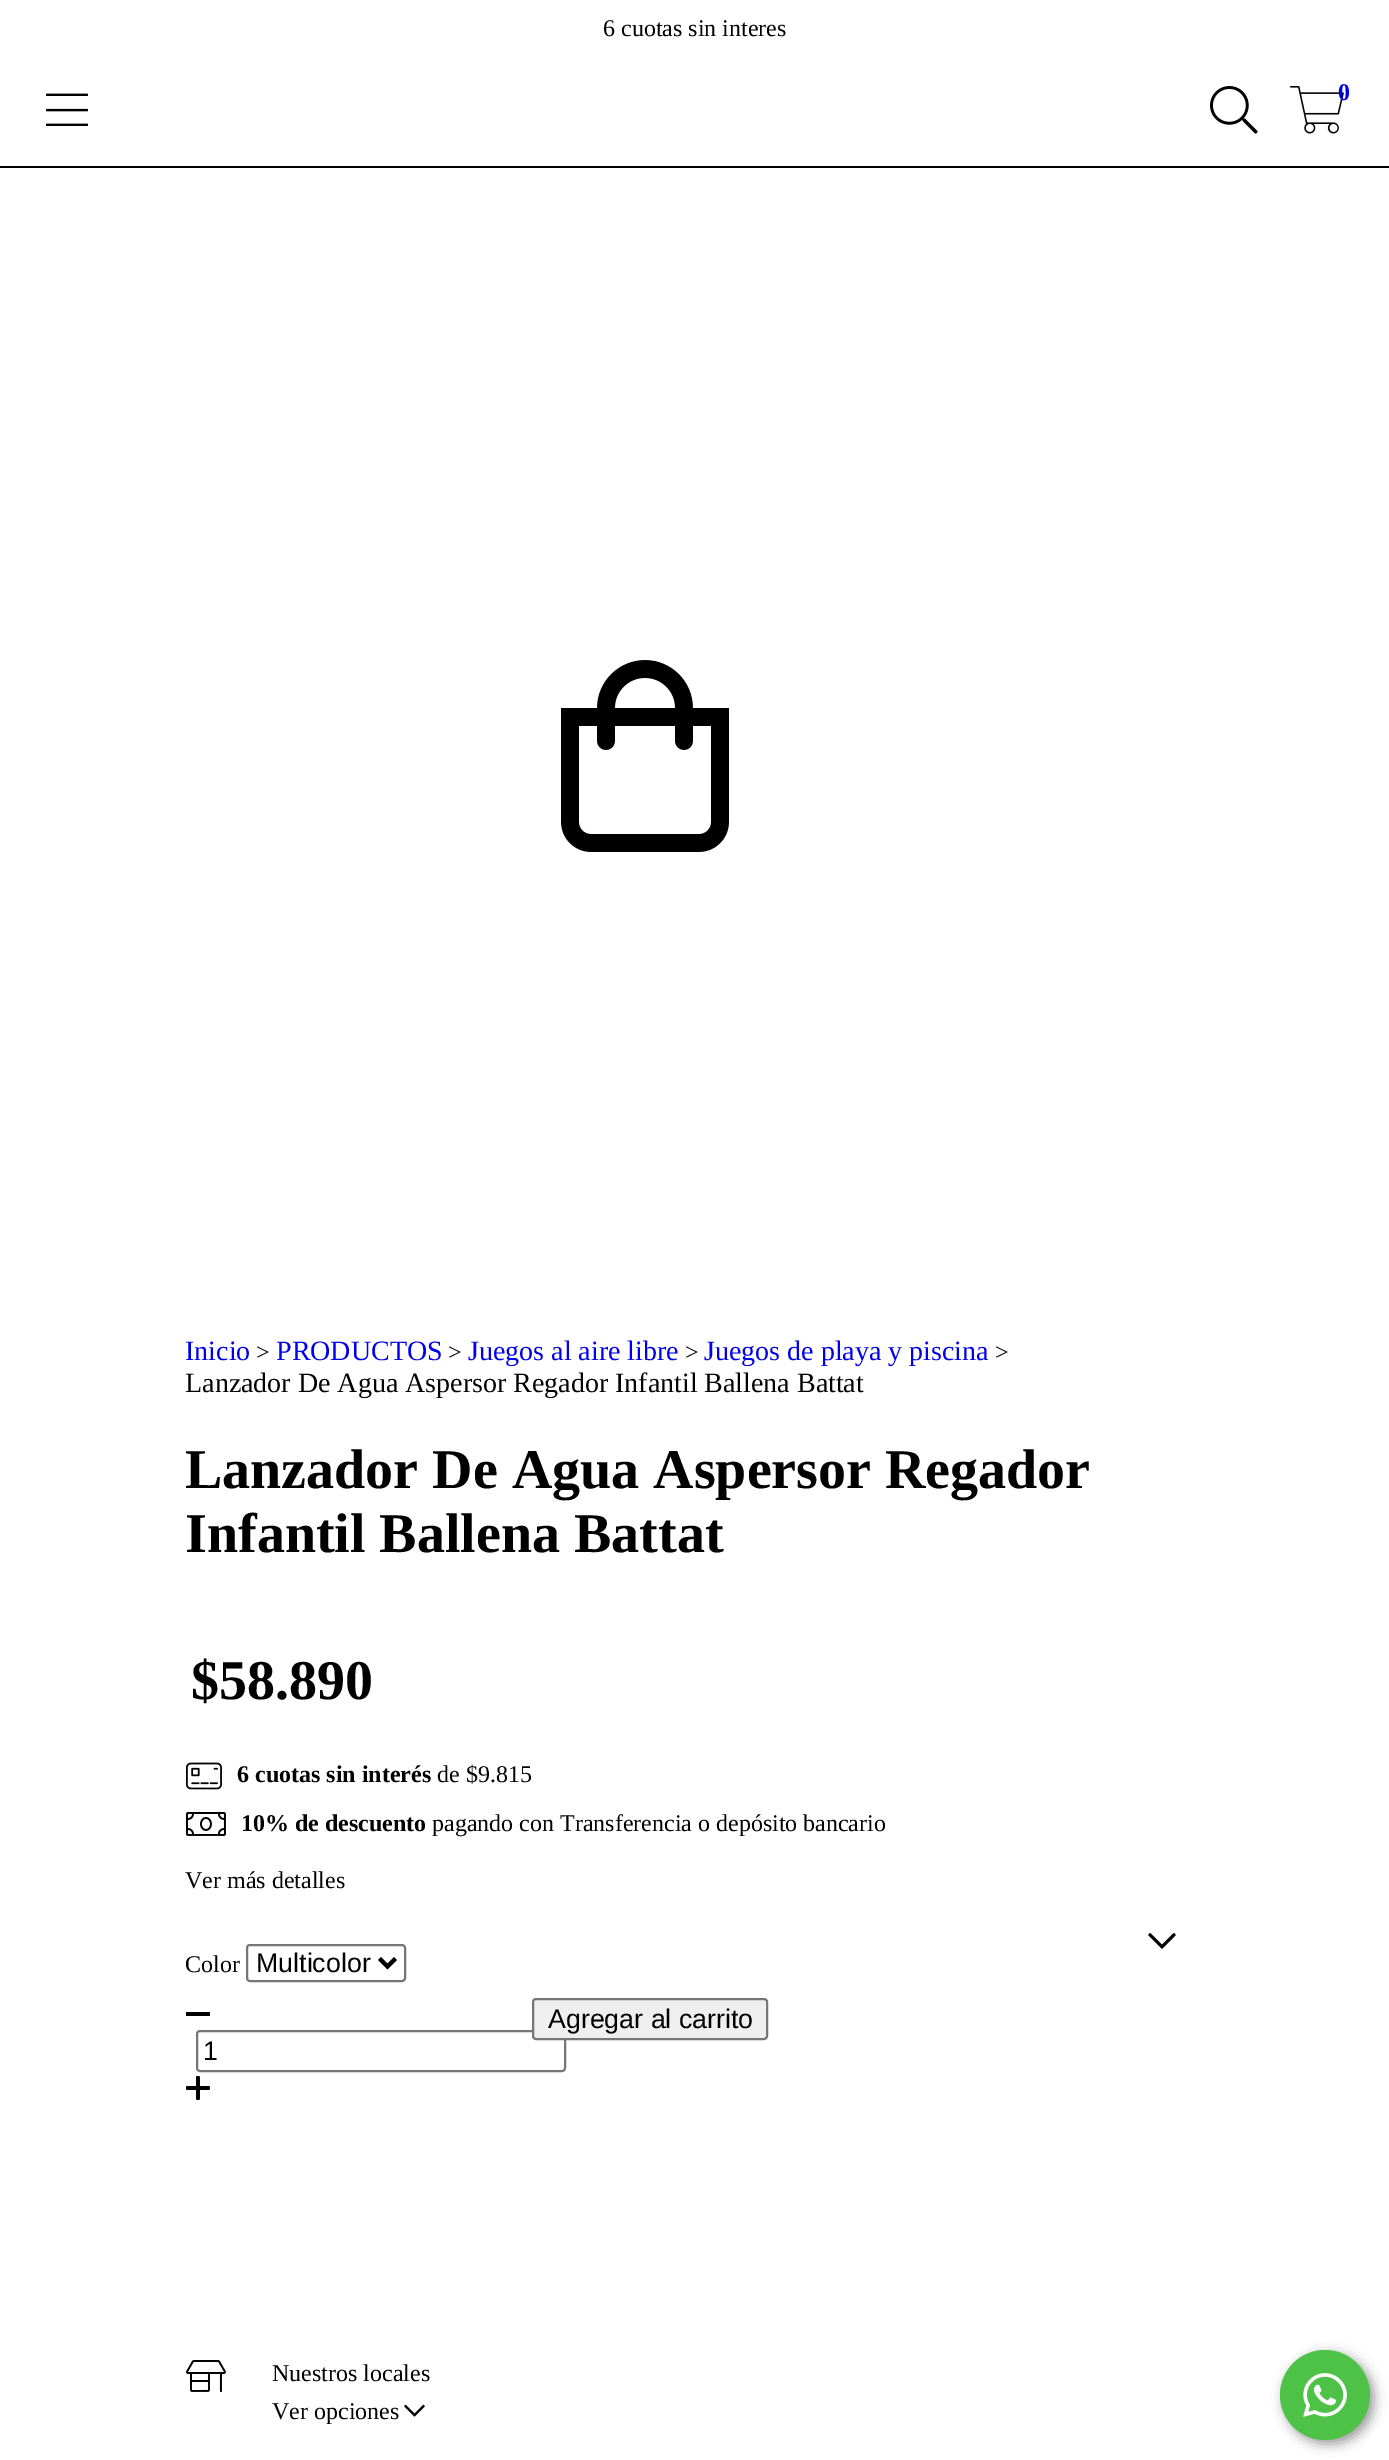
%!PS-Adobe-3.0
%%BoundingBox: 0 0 1389 2460
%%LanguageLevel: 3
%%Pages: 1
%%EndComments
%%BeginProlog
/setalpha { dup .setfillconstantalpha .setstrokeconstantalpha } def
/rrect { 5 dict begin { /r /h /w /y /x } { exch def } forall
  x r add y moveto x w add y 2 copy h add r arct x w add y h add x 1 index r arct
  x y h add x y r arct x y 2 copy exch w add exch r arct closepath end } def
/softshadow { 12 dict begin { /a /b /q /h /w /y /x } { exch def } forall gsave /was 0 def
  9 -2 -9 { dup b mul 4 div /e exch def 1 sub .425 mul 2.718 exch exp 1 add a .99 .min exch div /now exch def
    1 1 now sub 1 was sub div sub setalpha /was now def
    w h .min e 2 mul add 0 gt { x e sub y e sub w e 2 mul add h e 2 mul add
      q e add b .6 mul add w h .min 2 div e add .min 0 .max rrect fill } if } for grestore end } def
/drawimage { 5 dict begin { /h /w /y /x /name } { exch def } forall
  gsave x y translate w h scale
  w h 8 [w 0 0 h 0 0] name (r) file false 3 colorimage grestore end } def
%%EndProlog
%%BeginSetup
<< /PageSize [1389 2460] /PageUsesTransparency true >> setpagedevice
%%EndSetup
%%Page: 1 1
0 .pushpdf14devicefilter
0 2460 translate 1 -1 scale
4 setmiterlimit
1 setgray
0 0 1389 2460 rectfill
(images/1.raw) 46 93 42 33 drawimage
(images/2.raw) 1210 86 48 48 drawimage
(images/3.raw) 1290 86 54 48 drawimage
0 setgray
0 166 1389 2 rectfill
(images/4.raw) 561 660 168 192 drawimage
(images/5.raw) 186 1762 36 28 drawimage
(images/6.raw) 186 1812 40 24 drawimage
(images/7.raw) 1148 1933 28 16 drawimage
0.463 setgray
2 setlinewidth
247 1945 158 36 3 rrect stroke
0 setgray
4 setlinewidth
newpath 379.5 1958.5 moveto 387.5 1966.5 lineto 395.5 1958.5 lineto stroke
0.463 setgray
2 setlinewidth
197 2031 368 40 3 rrect stroke
0.937 setgray
533 1999 234 40 3 rrect gsave fill grestore
0.463 setgray
stroke
0 setgray
186 2012 24 4 rectfill
(images/8.raw) 186 2076 24 24 drawimage
(images/9.raw) 186 2360 40 32 drawimage
(images/10.raw) 404 2404 21 13 drawimage
1284 2354 90 90 45 6 0.4 softshadow
0.302 0.761 0.278 setrgbcolor
newpath 1325 2395 45 0 360 arc closepath fill
(images/11.raw) 1303 2373 44 44 drawimage
/LiberationSerif-Regular [24 0 0 -24 0 0] selectfont
0 setgray
603 36 moveto (6 cuotas sin interes) show
/LiberationSerif-Bold [24 0 0 -24 0 0] selectfont
0 0 0.933 setrgbcolor
1338 100 moveto (0) show
/LiberationSerif-Regular [28 0 0 -28 0 0] selectfont
185 1360 moveto (Inicio) show
/LiberationSerif-Regular [24 0 0 -24 0 0] selectfont
0 setgray
256 1360 moveto (>) show
/LiberationSerif-Regular [28 0 0 -28 0 0] selectfont
0 0 0.933 setrgbcolor
276 1360 moveto (PRODUCTOS) show
/LiberationSerif-Regular [24 0 0 -24 0 0] selectfont
0 setgray
448 1360 moveto (>) show
/LiberationSerif-Regular [28 0 0 -28 0 0] selectfont
0 0 0.933 setrgbcolor
468 1360 moveto (Juegos al aire libre) show
/LiberationSerif-Regular [24 0 0 -24 0 0] selectfont
0 setgray
685 1360 moveto (>) show
/LiberationSerif-Regular [28 0 0 -28 0 0] selectfont
0 0 0.933 setrgbcolor
704 1360 moveto (Juegos de playa y piscina) show
/LiberationSerif-Regular [24 0 0 -24 0 0] selectfont
0 setgray
995 1360 moveto (>) show
/LiberationSerif-Regular [28 0 0 -28 0 0] selectfont
185 1392 moveto (Lanzador De Agua Aspersor Regador Infantil Ballena Battat) show
/LiberationSerif-Bold [56 0 0 -56 0 0] selectfont
185 1488 moveto (Lanzador De Agua Aspersor Regador) show
185 1552 moveto (Infantil Ballena Battat) show
191 1699 moveto ($58.890) show
/LiberationSerif-Bold [24 0 0 -24 0 0] selectfont
237 1782 moveto (6 cuotas sin interés) show
/LiberationSerif-Regular [24 0 0 -24 0 0] selectfont
437 1782 moveto (de $9.815) show
/LiberationSerif-Bold [24 0 0 -24 0 0] selectfont
241 1831 moveto (10% de descuento) show
/LiberationSerif-Regular [24 0 0 -24 0 0] selectfont
432 1831 moveto (pagando con Transferencia o depósito bancario) show
185 1888 moveto (Ver más detalles) show
185 1972 moveto (Color) show
/LiberationSans-Regular [26.75 0 0 -26.75 0 0] selectfont
256 1972 moveto (Multicolor) show
548 2028 moveto (Agregar al carrito) show
203 2060 moveto (1) show
/LiberationSerif-Regular [24 0 0 -24 0 0] selectfont
272 2381 moveto (Nuestros locales) show
272 2419 moveto (Ver opciones) show
.poppdf14devicefilter showpage
%%EOF
